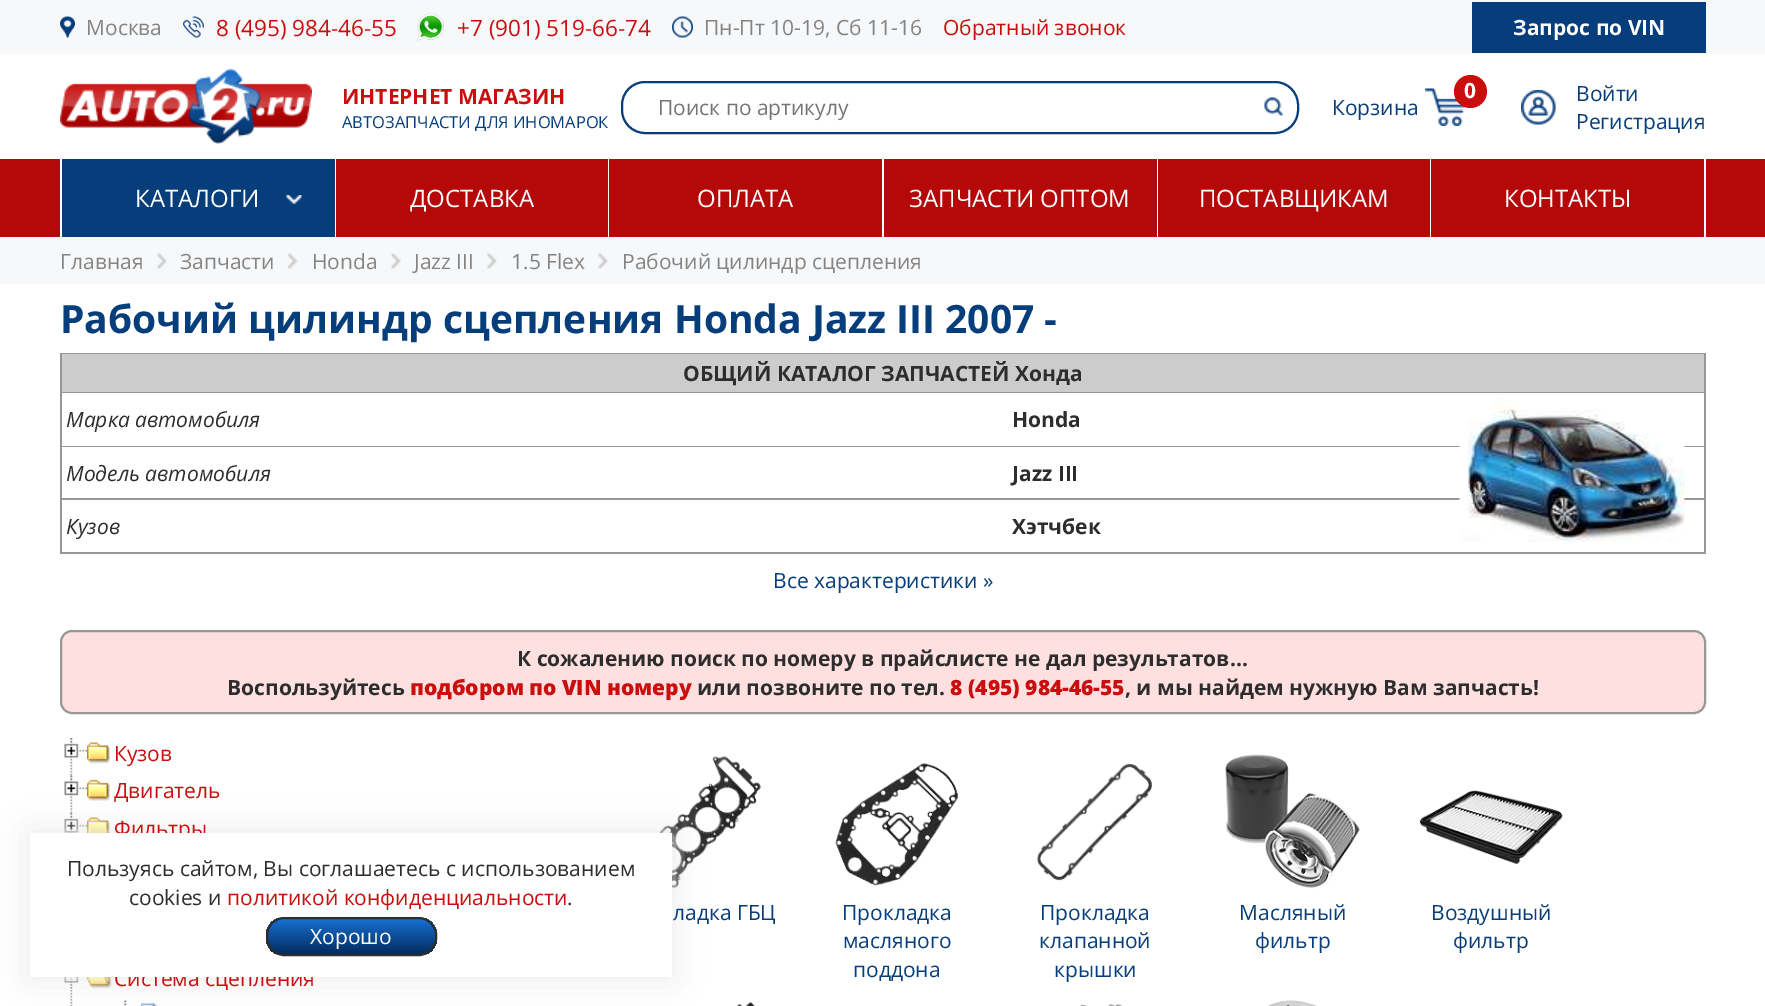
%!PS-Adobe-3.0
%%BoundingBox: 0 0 1765 1006
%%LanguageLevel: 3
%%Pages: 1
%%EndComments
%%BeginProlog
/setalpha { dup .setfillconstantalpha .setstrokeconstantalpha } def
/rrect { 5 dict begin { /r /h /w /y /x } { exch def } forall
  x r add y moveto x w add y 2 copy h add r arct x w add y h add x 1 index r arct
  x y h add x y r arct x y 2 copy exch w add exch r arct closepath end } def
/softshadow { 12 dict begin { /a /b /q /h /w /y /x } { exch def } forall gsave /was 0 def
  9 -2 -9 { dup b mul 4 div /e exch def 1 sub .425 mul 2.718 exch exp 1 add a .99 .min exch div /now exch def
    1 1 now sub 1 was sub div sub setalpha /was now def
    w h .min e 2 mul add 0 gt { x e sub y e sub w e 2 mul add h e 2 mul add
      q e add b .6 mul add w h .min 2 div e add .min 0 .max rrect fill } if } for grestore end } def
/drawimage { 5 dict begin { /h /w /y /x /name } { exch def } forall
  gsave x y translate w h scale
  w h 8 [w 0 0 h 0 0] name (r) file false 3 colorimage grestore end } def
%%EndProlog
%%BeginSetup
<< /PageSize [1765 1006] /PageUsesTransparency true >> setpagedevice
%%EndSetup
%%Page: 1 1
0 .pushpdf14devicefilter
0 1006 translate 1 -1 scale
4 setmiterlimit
1 setgray
0 0 1765 1006 rectfill
0.969 0.973 0.98 setrgbcolor
0 0 1765 54 rectfill
(images/1.raw) 60 16 15 22 drawimage
(images/2.raw) 183 16 21 22 drawimage
(images/3.raw) 417 13 27 28 drawimage
(images/4.raw) 672 16 21 22 drawimage
0.024 0.239 0.482 setrgbcolor
1472 2 234 51 rectfill
(images/5.raw) 60 69 252 75 drawimage
2 setlinewidth
622 82 676 51 23 rrect stroke
(images/6.raw) 1264 97 19 19 drawimage
(images/7.raw) 1425 88 41 38 drawimage
0.792 0.051 0.051 setrgbcolor
newpath 1470.5 91.5 16.5 0 360 arc closepath fill
(images/8.raw) 1521 90 35 35 drawimage
0.71 0.031 0.031 setrgbcolor
0 159 1765 78 rectfill
0.024 0.239 0.482 setrgbcolor
62 159 273 78 rectfill
1 setgray
335 159 1 78 rectfill
60 159 2 78 rectfill
(images/9.raw) 286 195 16 9 drawimage
608 159 1 78 rectfill
882 159 2 78 rectfill
1157 159 1 78 rectfill
1430 159 1 78 rectfill
1704 159 2 78 rectfill
0.969 0.973 0.98 setrgbcolor
0 237 1765 47 rectfill
(images/10.raw) 157 253 10 16 drawimage
(images/11.raw) 287 253 11 16 drawimage
(images/12.raw) 391 253 10 16 drawimage
(images/10.raw) 487 253 10 16 drawimage
(images/12.raw) 598 253 10 16 drawimage
0.592 setgray
60 353 1646 201 rectfill
0.8 setgray
62 354 1642 38 rectfill
1 setgray
62 393 1642 53 rectfill
62 447 1642 51 rectfill
62 500 1642 52 rectfill
(images/13.raw) 1459 398 226 144 drawimage
1 0.878 0.878 setrgbcolor
61 631 1644 82 11 rrect gsave fill grestore
0.592 setgray
stroke
(images/14.raw) 70 738 3 38 drawimage
(images/15.raw) 64 738 23 20 drawimage
(images/16.raw) 87 742 23 22 drawimage
(images/17.raw) 70 775 3 38 drawimage
(images/18.raw) 64 775 23 21 drawimage
(images/19.raw) 87 779 23 22 drawimage
(images/20.raw) 70 813 3 20 drawimage
(images/15.raw) 64 813 23 20 drawimage
(images/21.raw) 87 817 23 16 drawimage
(images/22.raw) 70 977 3 29 drawimage
(images/23.raw) 64 977 15 12 drawimage
(images/24.raw) 87 977 25 12 drawimage
(images/25.raw) 124 1000 3 6 drawimage
(images/26.raw) 124 1000 3 6 drawimage
(images/27.raw) 141 1003 17 3 drawimage
(images/28.raw) 659 756 102 133 drawimage
(images/29.raw) 835 763 124 123 drawimage
(images/30.raw) 1037 763 115 118 drawimage
(images/31.raw) 1225 754 135 135 drawimage
(images/32.raw) 1419 790 144 74 drawimage
(images/33.raw) 736 1002 19 4 drawimage
(images/34.raw) 1080 1004 43 2 drawimage
(images/35.raw) 1268 1000 48 6 drawimage
0.918 setgray
30 833 642 144 0 16.5 1 softshadow
/OpenSans-Regular [21 0 0 -21 0 0] selectfont
0.518 setgray
86 35 moveto (Москва) show
/OpenSans-Regular [22.5 0 0 -22.5 0 0] selectfont
0.792 0.051 0.051 setrgbcolor
216 36 moveto (8 \(495\) 984-46-55) show
457 36 moveto (+7 \(901\) 519-66-74) show
/OpenSans-Regular [21 0 0 -21 0 0] selectfont
0.518 setgray
704 35 moveto (Пн-Пт 10-19, Сб 11-16) show
0.792 0.051 0.051 setrgbcolor
943 35 moveto (Обратный звонок) show
/OpenSans-Bold [21 0 0 -21 0 0] selectfont
1 setgray
1513 35 moveto (Запрос по VIN) show
0.792 0.051 0.051 setrgbcolor
342 104 moveto (ИНТЕРНЕТ МАГАЗИН) show
/OpenSans-Regular [16.5 0 0 -16.5 0 0] selectfont
0.024 0.239 0.482 setrgbcolor
342 128 moveto (АВТОЗАПЧАСТИ ДЛЯ ИНОМАРОК) show
/OpenSans-Regular [21 0 0 -21 0 0] selectfont
0.459 setgray
658 115 moveto (Поиск по артикулу) show
0.024 0.239 0.482 setrgbcolor
1332 115 moveto (Корзина) show
/OpenSans-Bold [21 0 0 -21 0 0] selectfont
1 setgray
1464 98 moveto (0) show
/OpenSans-Regular [21 0 0 -21 0 0] selectfont
0.024 0.239 0.482 setrgbcolor
1576 101 moveto (Войти) show
1576 129 moveto (Регистрация) show
/OpenSans-Regular [24 0 0 -24 0 0] selectfont
1 setgray
135 207 moveto (КАТАЛОГИ) show
410 207 moveto (ДОСТАВКА) show
697 207 moveto (ОПЛАТА) show
909 207 moveto (ЗАПЧАСТИ ОПТОМ) show
1199 207 moveto (ПОСТАВЩИКАМ) show
1504 207 moveto (КОНТАКТЫ) show
/OpenSans-Regular [21 0 0 -21 0 0] selectfont
0.518 setgray
60 269 moveto (Главная) show
180 269 moveto (Запчасти) show
312 269 moveto (Honda) show
414 269 moveto (Jazz III) show
511 269 moveto (1.5 Flex) show
622 269 moveto (Рабочий цилиндр сцепления) show
/OpenSans-Bold [39 0 0 -39 0 0] selectfont
0.024 0.239 0.482 setrgbcolor
60 333 moveto (Рабочий цилиндр сцепления Honda Jazz III 2007 -) show
/OpenSans-Bold [21 0 0 -21 0 0] selectfont
0.176 setgray
683 381 moveto (ОБЩИЙ КАТАЛОГ ЗАПЧАСТЕЙ Хонда) show
/OpenSans-Italic [21 0 0 -21 0 0] selectfont
66 427 moveto (Марка автомобиля) show
/OpenSans-Bold [21 0 0 -21 0 0] selectfont
1012 427 moveto (Honda) show
/OpenSans-Italic [21 0 0 -21 0 0] selectfont
66 481 moveto (Модель автомобиля) show
/OpenSans-Bold [21 0 0 -21 0 0] selectfont
1012 481 moveto (Jazz III) show
/OpenSans-Italic [21 0 0 -21 0 0] selectfont
66 534 moveto (Кузов) show
/OpenSans-Bold [21 0 0 -21 0 0] selectfont
1012 534 moveto (Хэтчбек) show
/OpenSans-Regular [21 0 0 -21 0 0] selectfont
0.024 0.239 0.482 setrgbcolor
773 588 moveto (Все характеристики ») show
/OpenSans-Bold [21 0 0 -21 0 0] selectfont
0.176 setgray
517 666 moveto (К сожалению поиск по номеру в прайслисте не дал результатов...) show
227 695 moveto (Воспользуйтесь) show
/OpenSans-ExtraBold [21 0 0 -21 0 0] selectfont
0.792 0.051 0.051 setrgbcolor
410 695 moveto (подбором по VIN номеру) show
/OpenSans-Bold [21 0 0 -21 0 0] selectfont
0.176 setgray
697 695 moveto (или позвоните по тел.) show
/OpenSans-ExtraBold [21 0 0 -21 0 0] selectfont
0.792 0.051 0.051 setrgbcolor
950 695 moveto (8 \(495\) 984-46-55) show
/OpenSans-Bold [21 0 0 -21 0 0] selectfont
0.176 setgray
1125 695 moveto (, и мы найдем нужную Вам запчасть!) show
/OpenSans-Regular [21 0 0 -21 0 0] selectfont
0.792 0.051 0.051 setrgbcolor
114 761 moveto (Кузов) show
114 798 moveto (Двигатель) show
114 836 moveto (Фильтры) show
114 986 moveto (Система сцепления) show
0.024 0.239 0.482 setrgbcolor
673 920 moveto (ладка ГБЦ) show
842 920 moveto (Прокладка) show
843 948 moveto (масляного) show
853 977 moveto (поддона) show
1040 920 moveto (Прокладка) show
1039 948 moveto (клапанной) show
1054 977 moveto (крышки) show
1239 920 moveto (Масляный) show
1255 948 moveto (фильтр) show
1431 920 moveto (Воздушный) show
1453 948 moveto (фильтр) show
1 setgray
30 833 642 144 rectfill
0.176 setgray
67 876 moveto (Пользуясь сайтом, Вы соглашаетесь с использованием) show
129 905 moveto (cookies и) show
0.792 0.051 0.051 setrgbcolor
227 905 moveto (политикой конфиденциальности) show
0.176 setgray
567 905 moveto (.) show
gsave
266 917 171 39 18 rrect clip newpath
gsave newpath 266 918 moveto 437 918 lineto 437 954 lineto 266 954 lineto closepath clip newpath
<< /ShadingType 2 /ColorSpace /DeviceRGB /Coords [351 954 351 918] /Extend [true true] /Function << /FunctionType 2 /Domain [0 1] /C0 [0.004 0.173 0.365] /C1 [0.094 0.443 0.839] /N 1 >> >> shfill grestore
grestore
267 918 169 37 17 rrect stroke
1 setgray
310 944 moveto (Хорошо) show
.poppdf14devicefilter showpage
%%EOF
